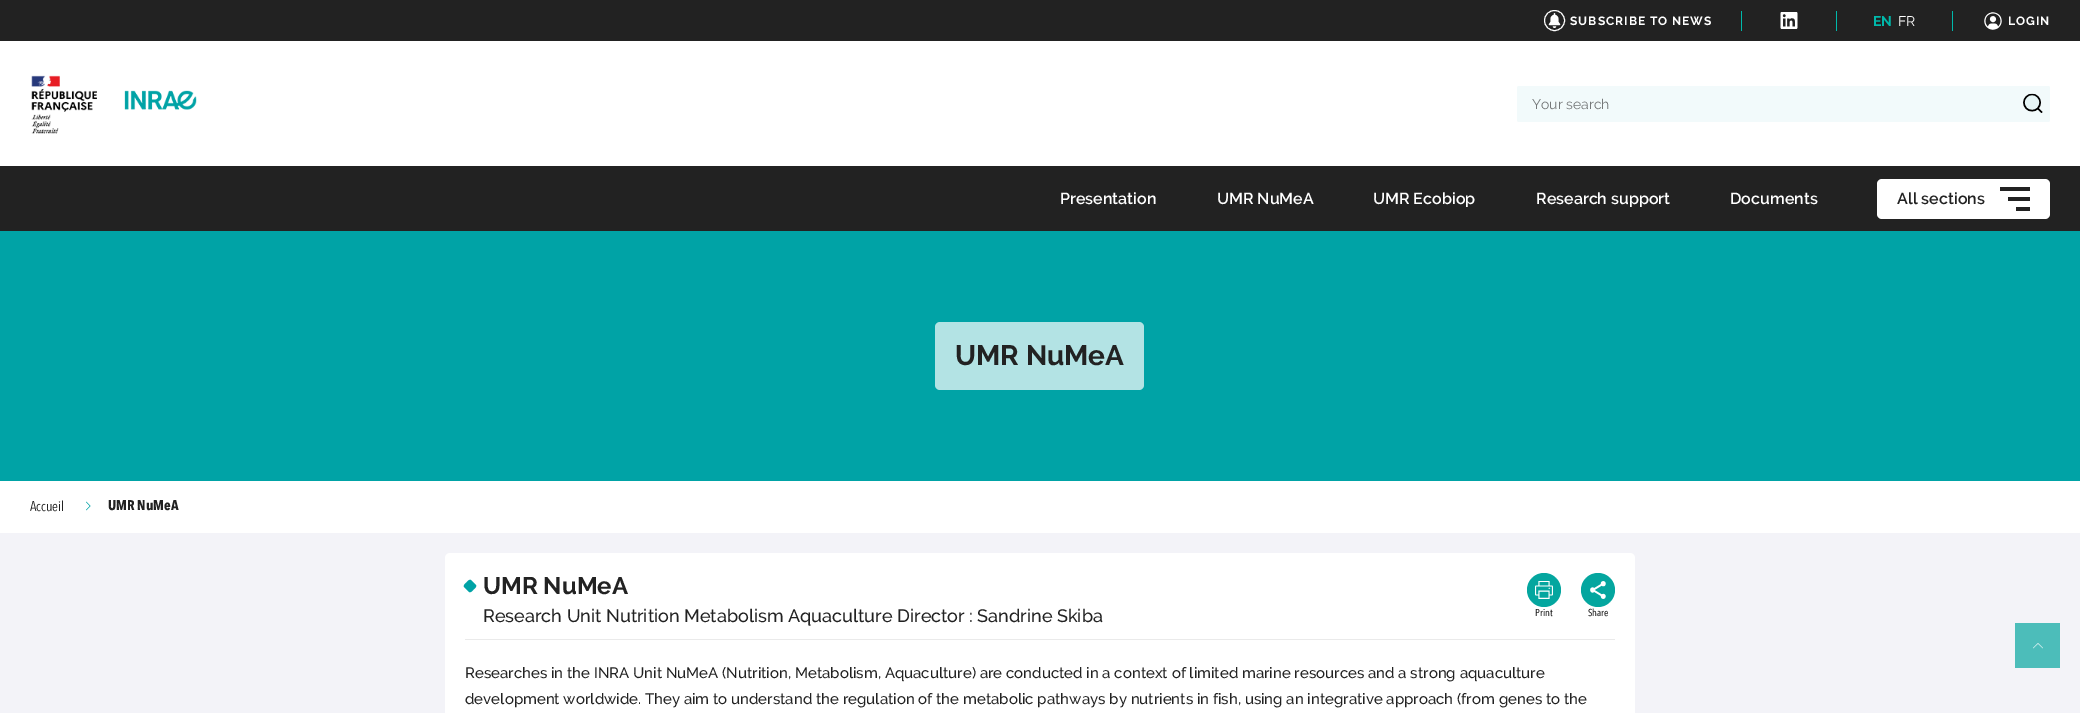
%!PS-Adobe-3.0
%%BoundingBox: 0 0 2080 713
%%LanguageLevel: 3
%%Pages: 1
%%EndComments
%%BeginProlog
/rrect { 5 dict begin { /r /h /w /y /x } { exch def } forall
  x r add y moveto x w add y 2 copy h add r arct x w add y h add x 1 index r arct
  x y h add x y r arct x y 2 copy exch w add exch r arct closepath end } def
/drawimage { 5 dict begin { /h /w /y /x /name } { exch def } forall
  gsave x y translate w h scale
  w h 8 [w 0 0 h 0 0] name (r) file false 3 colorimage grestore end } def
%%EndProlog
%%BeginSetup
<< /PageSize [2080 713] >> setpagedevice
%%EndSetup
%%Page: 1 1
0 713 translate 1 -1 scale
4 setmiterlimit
1 setgray
0 0 2080 713 rectfill
0.133 setgray
0 0 2080 41 rectfill
1 setgray
newpath 1554.5 20.5 10 0 360 arc closepath stroke
(images/1.raw) 1548 13 13 15 drawimage
0 0.725 0.671 setrgbcolor
1741 11 1 20 rectfill
(images/2.raw) 1780 12 18 17 drawimage
1836 11 1 20 rectfill
1952 11 1 20 rectfill
(images/3.raw) 1984 12 18 18 drawimage
(images/4.raw) 31 75 166 59 drawimage
0.949 0.98 0.984 setrgbcolor
1517 86 533 36 2 rrect fill
(images/5.raw) 2023 93 20 20 drawimage
0.133 setgray
0 166 2080 65 rectfill
1 setgray
1877 179 173 40 5 rrect fill
0.133 setgray
2000 187 30 4 rectfill
2008 197 22 4 rectfill
2016 207 14 4 rectfill
0 0.639 0.651 setrgbcolor
0 231 2080 250 rectfill
0.702 0.89 0.894 setrgbcolor
935 322 209 68 5 rrect fill
(images/6.raw) 86 501 5 10 drawimage
0.953 0.953 0.973 setrgbcolor
0 533 2080 180 rectfill
1 setgray
445 553 1190 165 5 rrect fill
0.918 setgray
465 639 1150 1 rectfill
0 0.639 0.651 setrgbcolor
newpath 471.5 580.5 moveto 476 585 lineto 477 587 474.5 588.5 473.5 589.5 curveto 472.5 590.5 470.5 593.5 468.5 591.5 curveto 464 587 lineto 463 585 465.5 583.5 466.5 582.5 curveto 467.5 581.5 469.5 578.5 471.5 580.5 curveto closepath fill
0.016 0.651 0.624 setrgbcolor
newpath 1544 590 17 0 360 arc closepath fill
(images/7.raw) 1535 581 18 18 drawimage
newpath 1598 590 17 0 360 arc closepath fill
(images/8.raw) 1590 581 16 18 drawimage
0.298 0.741 0.729 setrgbcolor
2015 623 45 45 rectfill
(images/9.raw) 2033 643 10 6 drawimage
/Raleway-Bold [12 0 0 -12 0 0] selectfont
1 setgray
1570 25 moveto 1 0 (SUBSCRIBE TO NEWS) ashow
/Raleway-Bold [14 0 0 -14 0 0] selectfont
0 0.725 0.671 setrgbcolor
1873 26 moveto (EN) show
/Raleway-Regular [14 0 0 -14 0 0] selectfont
1 setgray
1898 26 moveto (FR) show
/Raleway-Bold [12 0 0 -12 0 0] selectfont
2008 25 moveto 1 0 (LOGIN) ashow
/Raleway-Regular [14 0 0 -14 0 0] selectfont
0.459 0.471 0.475 setrgbcolor
1532 109 moveto (Your search) show
/Raleway-SemiBold [16 0 0 -16 0 0] selectfont
1 setgray
1060 204 moveto (Presentation) show
1217 204 moveto (UMR NuMeA) show
gsave
1373 191 103 16 rectclip
1373 204 moveto (UMR Ecobiop) show
grestore
gsave
1536 191 134 16 rectclip
1536 204 moveto (Research support) show
grestore
1730 204 moveto (Documents) show
0.133 setgray
1897 204 moveto (All sections) show
/Raleway-Bold [28 0 0 -28 0 0] selectfont
955 365 moveto (UMR NuMeA) show
/AvenirNext-Regular [14 0 0 -14 0 0] selectfont
30 511 moveto (Accueil) show
/AvenirNext-Bold [14 0 0 -14 0 0] selectfont
108 510 moveto (UMR NuMeA) show
/Raleway-Bold [24 0 0 -24 0 0] selectfont
483 594 moveto (UMR NuMeA) show
/Raleway-Medium [18 0 0 -18 0 0] selectfont
483 622 moveto (Research Unit Nutrition Metabolism Aquaculture Director : Sandrine Skiba) show
/AvenirNext-Medium [10 0 0 -10 0 0] selectfont
1535 616 moveto (Print) show
1588 616 moveto (Share) show
/Raleway-Medium [15 0 0 -15 0 0] selectfont
465 678 moveto (Researches in the INRA Unit NuMeA \(Nutrition, Metabolism, Aquaculture\) are conducted in a context of limited marine resources and a strong aquaculture) show
465 704 moveto (development worldwide. They aim to understand the regulation of the metabolic pathways by nutrients in fish, using an integrative approach \(from genes to the) show
showpage
%%EOF
